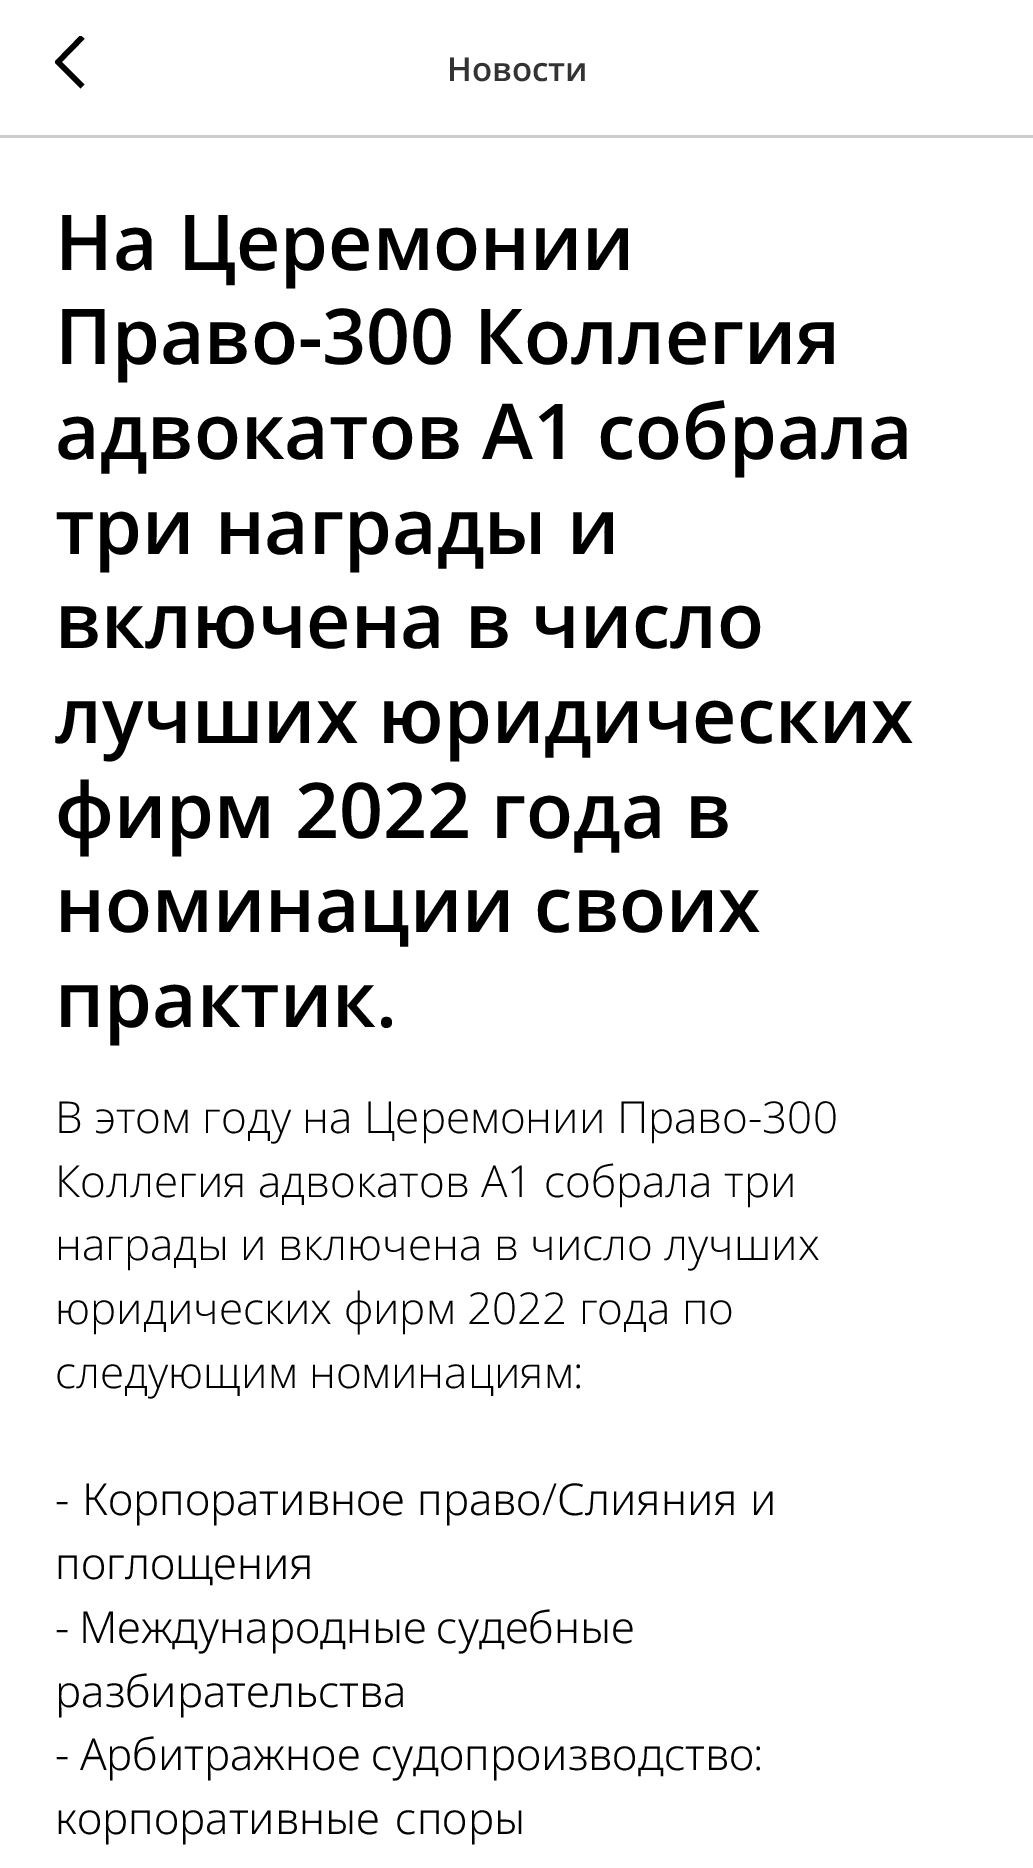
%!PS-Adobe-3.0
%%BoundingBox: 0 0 1033 1868
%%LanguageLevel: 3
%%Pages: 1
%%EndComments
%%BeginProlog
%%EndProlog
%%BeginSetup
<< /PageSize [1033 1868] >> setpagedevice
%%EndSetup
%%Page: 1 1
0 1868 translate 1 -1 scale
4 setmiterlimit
1 setgray
0 0 1033 1868 rectfill
0.8 setgray
0 135 1033 3 rectfill
gsave
55 36 30 55 rectclip
0 setgray
5.5 setlinewidth
newpath 82.5 86.5 moveto 58 62 lineto 82.5 37 lineto stroke
grestore
/OpenSans-SemiBold [33 0 0 -33 0 0] selectfont
0.2 setgray
447 81 moveto (Новости) show
/OpenSans-SemiBold [77 0 0 -77 0 0] selectfont
0 setgray
55 270 moveto (На Церемонии) show
55 364 moveto (Право-300 Коллегия) show
55 459 moveto (адвокатов А1 собрала) show
55 554 moveto (три награды и) show
55 648 moveto (включена в число) show
55 743 moveto (лучших юридических) show
55 838 moveto (фирм 2022 года в) show
55 932 moveto (номинации своих) show
55 1027 moveto (практик.) show
/OpenSans-Light [44 0 0 -44 0 0] selectfont
55 1133 moveto (В этом году на Церемонии Право-300) show
55 1197 moveto (Коллегия адвокатов А1 собрала три) show
55 1260 moveto (награды и включена в число лучших) show
55 1324 moveto (юридических фирм 2022 года по) show
55 1388 moveto (следующим номинациям:) show
/NotoSans-Light [44 0 0 -44 0 0] selectfont
55 1515 moveto 1 0 32 (⁃ Корпоративное право) widthshow
/OpenSans-Light [44 0 0 -44 0 0] selectfont
542 1515 moveto (/) show
/NotoSans-Light [44 0 0 -44 0 0] selectfont
557 1515 moveto 1 0 32 (Слияния и) widthshow
55 1579 moveto (поглощения) show
55 1643 moveto -2 0 32 (⁃ Международные судебные) widthshow
55 1707 moveto (разбирательства) show
55 1770 moveto -1 0 32 (⁃ Арбитражное судопроизводство) widthshow
/OpenSans-Light [44 0 0 -44 0 0] selectfont
753 1770 moveto (:) show
/NotoSans-Light [44 0 0 -44 0 0] selectfont
55 1834 moveto 4 0 32 (корпоративные споры) widthshow
showpage
%%EOF
